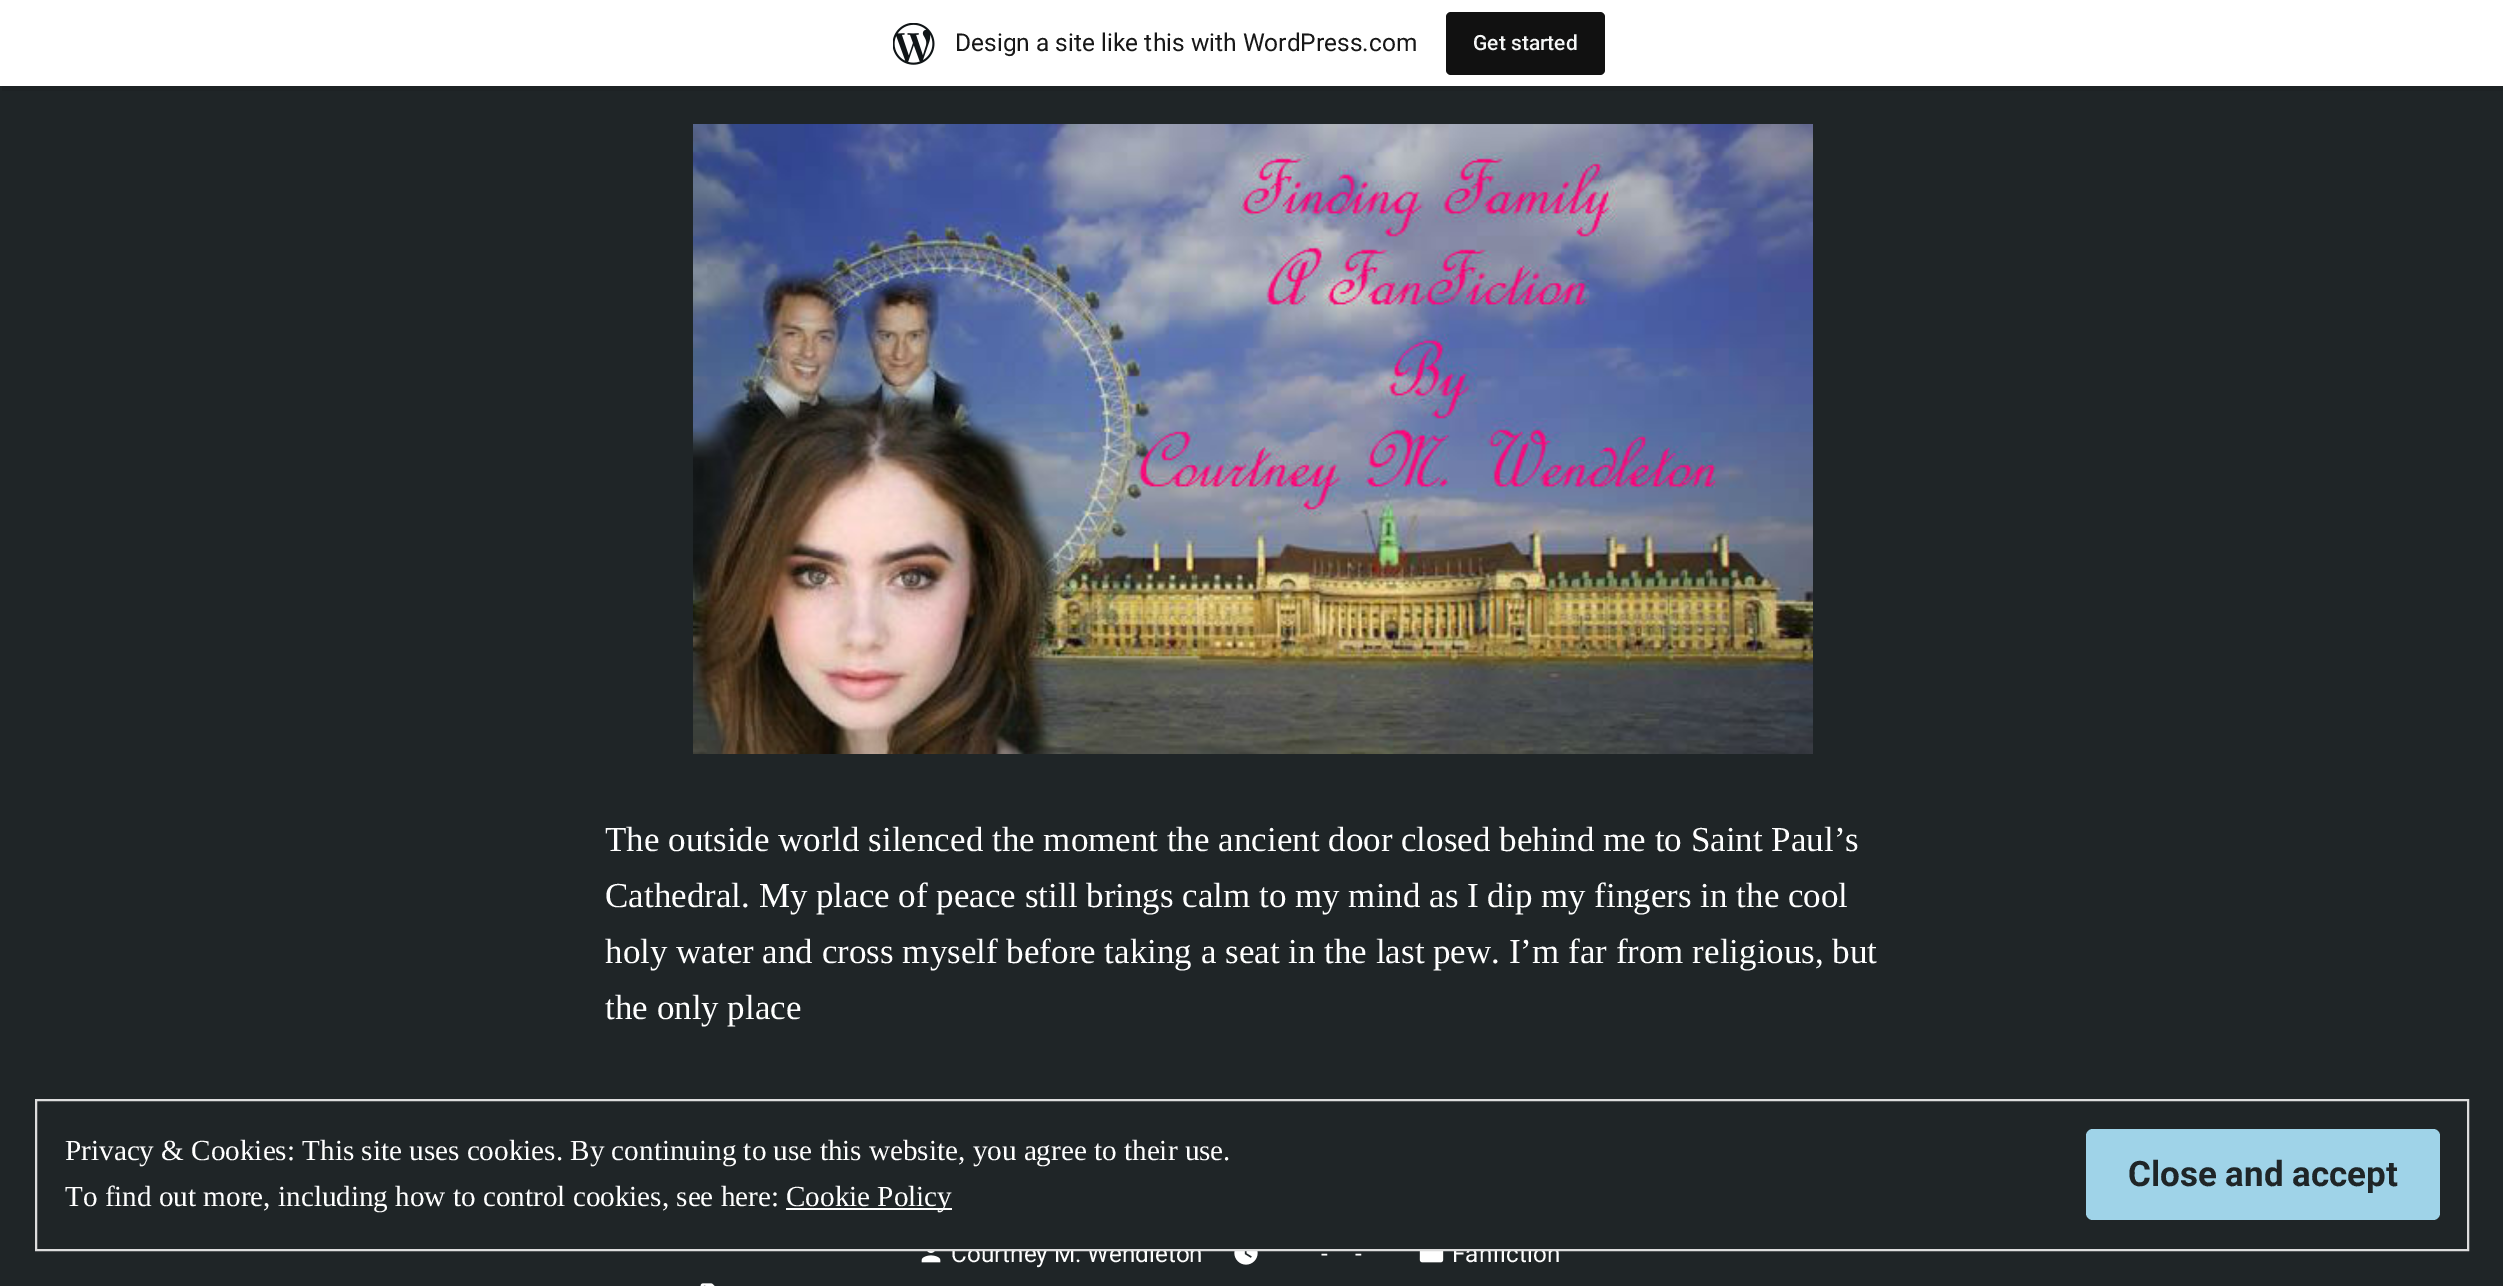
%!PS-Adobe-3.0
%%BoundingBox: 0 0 2503 1286
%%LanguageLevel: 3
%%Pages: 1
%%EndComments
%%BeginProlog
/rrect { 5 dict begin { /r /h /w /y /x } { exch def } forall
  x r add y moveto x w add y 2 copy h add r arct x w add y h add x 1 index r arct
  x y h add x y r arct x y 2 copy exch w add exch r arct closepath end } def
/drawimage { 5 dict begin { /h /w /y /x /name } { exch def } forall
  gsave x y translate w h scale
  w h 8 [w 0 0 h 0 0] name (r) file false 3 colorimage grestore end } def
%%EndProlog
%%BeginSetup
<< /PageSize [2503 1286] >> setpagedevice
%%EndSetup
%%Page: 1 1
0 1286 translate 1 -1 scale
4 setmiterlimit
0.122 0.145 0.153 setrgbcolor
0 0 2503 1286 rectfill
0.114 0.133 0.141 setrgbcolor
newpath 2 86 moveto 2 91 lineto 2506 91 lineto 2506 5 lineto 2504 5 lineto 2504 86 lineto closepath fill
1 setgray
0 0 2503 86 rectfill
(images/1.raw) 893 23 42 42 drawimage
0.067 setgray
1446 12 159 63 5 rrect fill
(images/2.raw) 693 124 1120 630 drawimage
(images/3.raw) 921 1251 20 12 drawimage
(images/4.raw) 1234 1251 24 14 drawimage
(images/5.raw) 1419 1251 25 12 drawimage
(images/6.raw) 700 1283 15 3 drawimage
/Roboto-Regular [24.5 0 0 -24.5 0 0] selectfont
0.09 setgray
955 51 moveto (Design a site like this with WordPress.com) show
/Roboto-Medium [21 0 0 -21 0 0] selectfont
0.965 0.969 0.969 setrgbcolor
1473 50 moveto (Get started) show
/LiberationSerif-Regular [35 0 0 -35 0 0] selectfont
1 setgray
605 851 moveto (The outside world silenced the moment the ancient door closed behind me to Saint Paul’s) show
605 907 moveto (Cathedral. My place of peace still brings calm to my mind as I dip my fingers in the cool) show
605 963 moveto (holy water and cross myself before taking a seat in the last pew. I’m far from religious, but) show
605 1019 moveto (the only place) show
/Roboto-Regular [24.25 0 0 -24.25 0 0] selectfont
951 1262 moveto (Courtney M. Wendleton) show
1321 1262 moveto (-) show
1355 1262 moveto (-) show
1452 1262 moveto (Fanfiction) show
0.122 0.145 0.153 setrgbcolor
953 1243 602 6 rectfill
0.867 setgray
2 setlinewidth
36 1100 2432 150 rectstroke
/LiberationSerif-Regular [29.15 0 0 -29.15 0 0] selectfont
1 setgray
65 1160 moveto (Privacy & Cookies: This site uses cookies. By continuing to use this website, you agree to their use.) show
0.624 0.827 0.91 setrgbcolor
2086 1129 354 91 7 rrect fill
/Roboto-Bold [35 0 0 -35 0 0] selectfont
0.122 0.145 0.153 setrgbcolor
2128 1186 moveto (Close and accept) show
/LiberationSerif-Regular [29.15 0 0 -29.15 0 0] selectfont
1 setgray
65 1206 moveto (To find out more, including how to control cookies, see here:) show
786 1208 166 2 rectfill
786 1206 moveto (Cookie Policy) show
showpage
%%EOF
